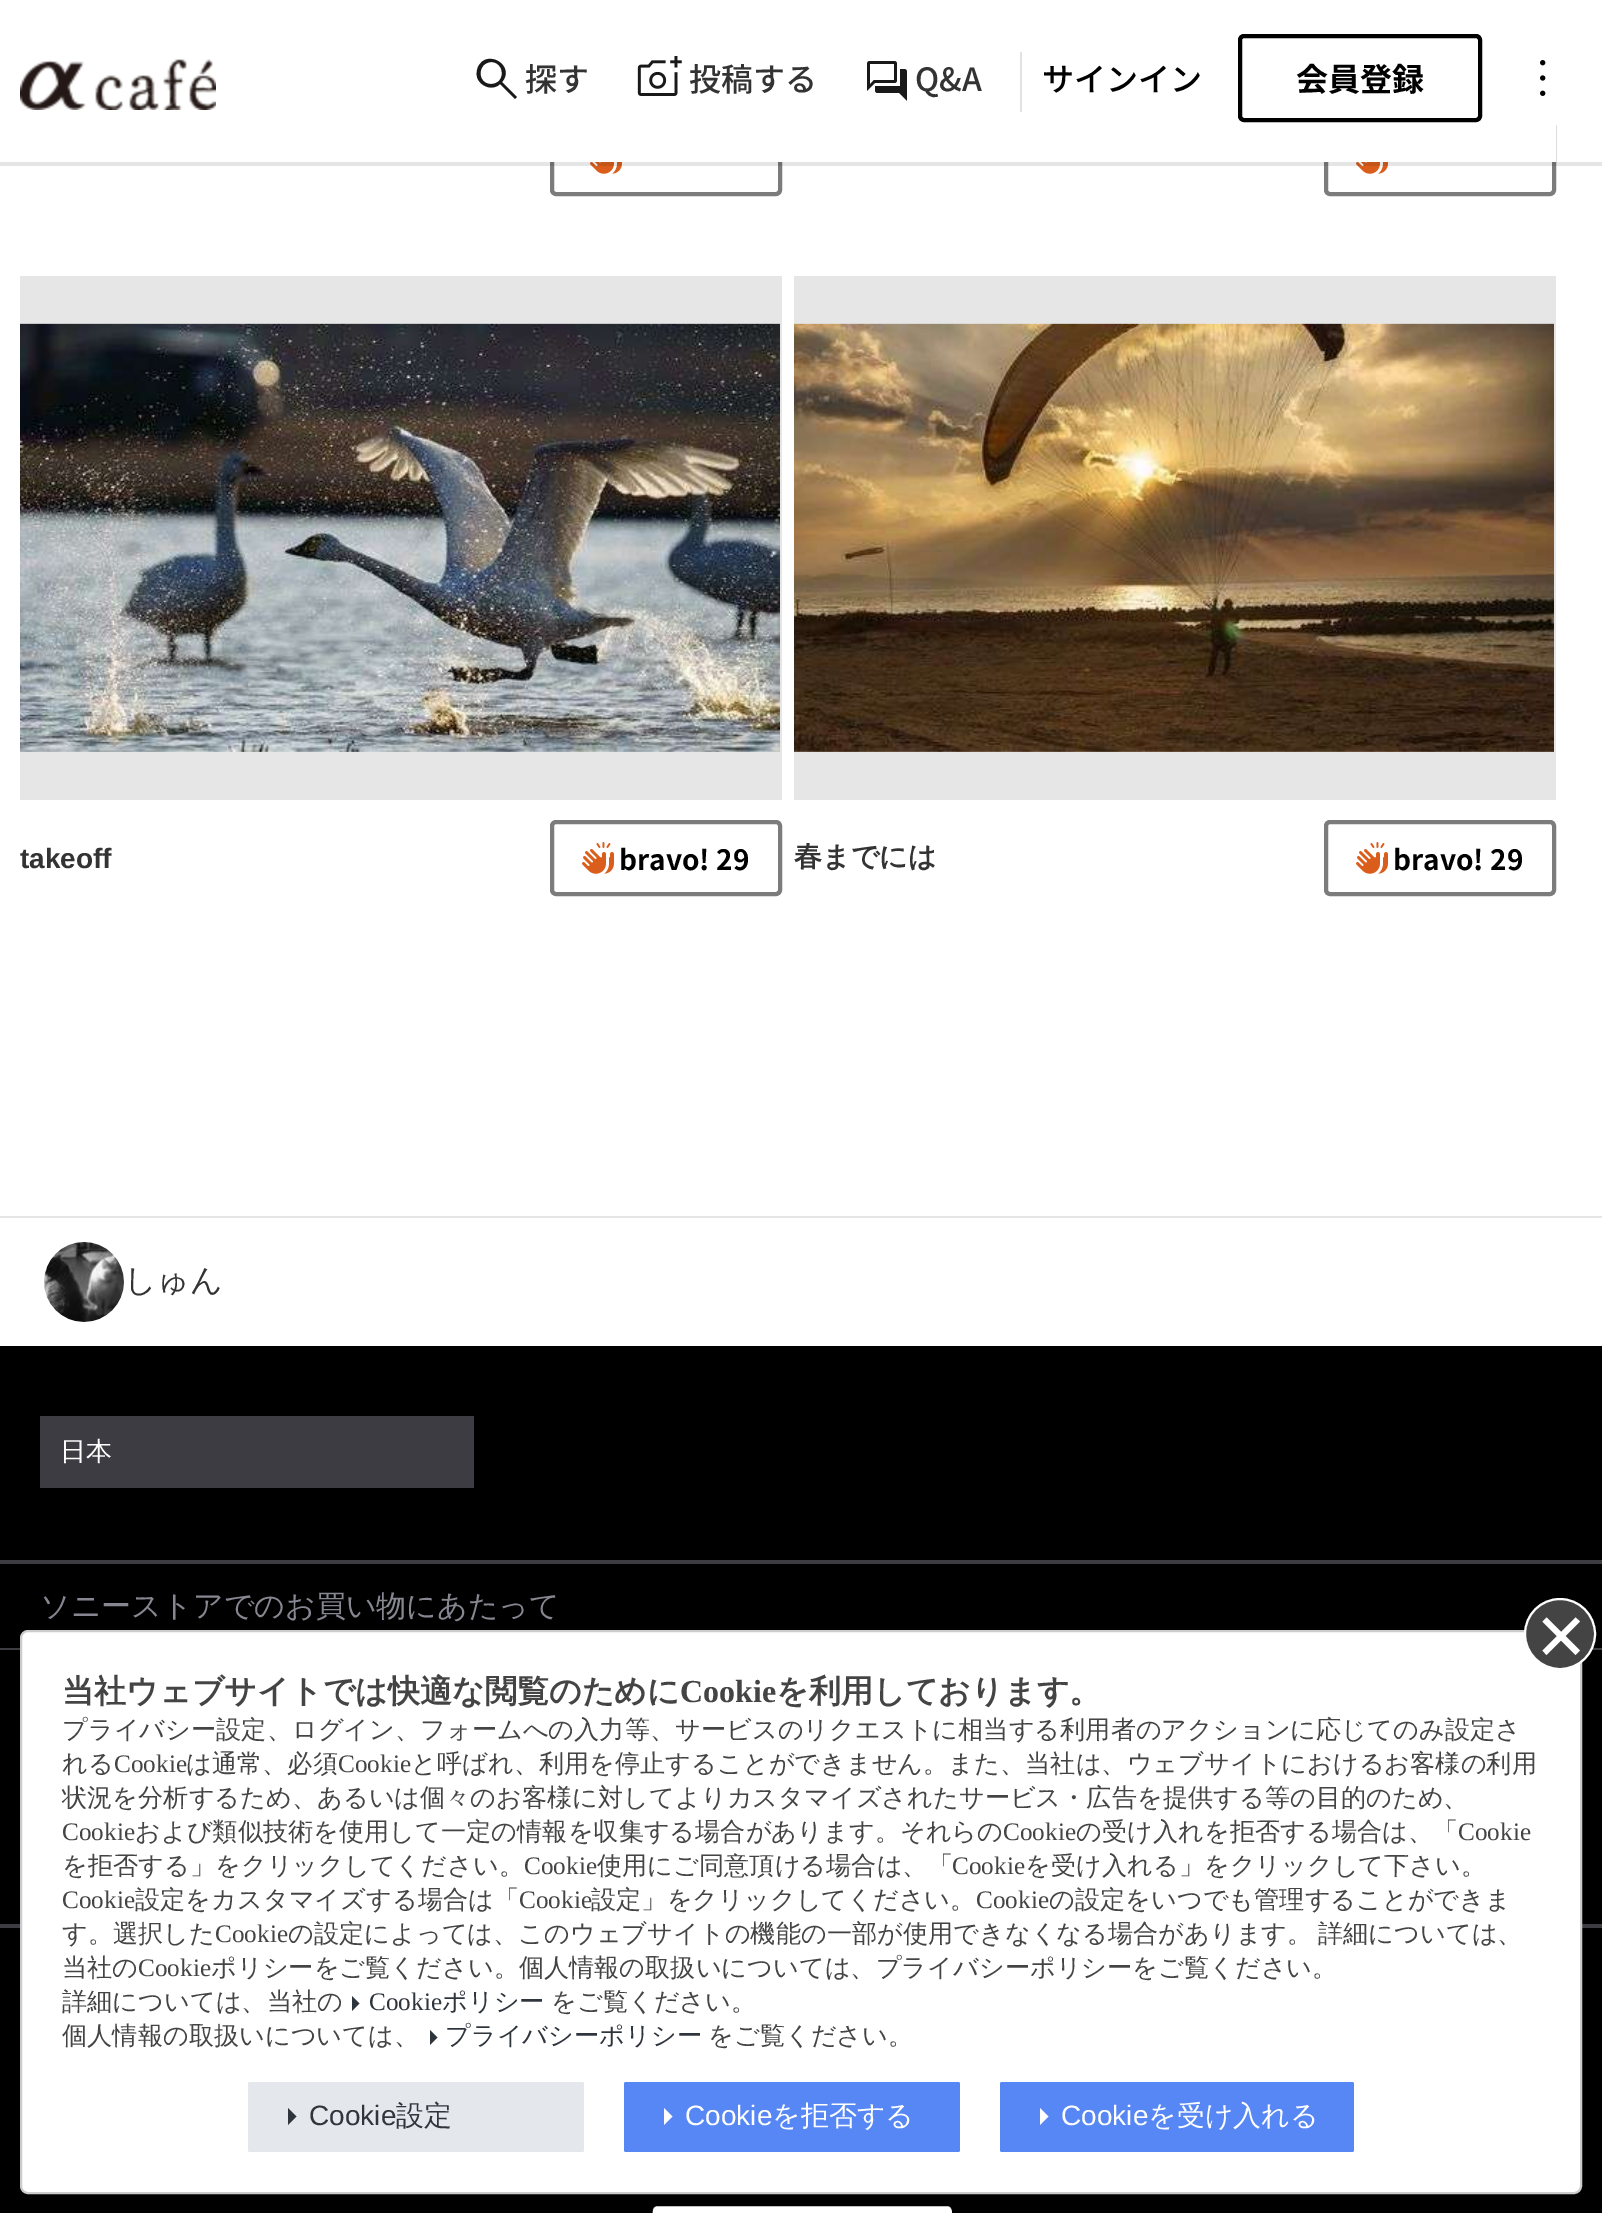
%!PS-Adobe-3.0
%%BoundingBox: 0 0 1602 2213
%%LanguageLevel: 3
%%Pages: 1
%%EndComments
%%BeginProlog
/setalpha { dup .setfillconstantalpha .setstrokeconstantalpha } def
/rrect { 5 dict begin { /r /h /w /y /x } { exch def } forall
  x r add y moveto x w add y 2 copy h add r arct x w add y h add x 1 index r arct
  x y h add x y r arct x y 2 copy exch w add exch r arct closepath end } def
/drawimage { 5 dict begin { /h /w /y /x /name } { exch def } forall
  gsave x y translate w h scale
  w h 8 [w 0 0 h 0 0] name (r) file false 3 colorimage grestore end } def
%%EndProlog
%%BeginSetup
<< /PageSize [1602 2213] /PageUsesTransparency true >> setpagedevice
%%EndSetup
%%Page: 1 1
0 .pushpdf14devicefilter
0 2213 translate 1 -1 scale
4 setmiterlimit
1 setgray
0 0 1602 2213 rectfill
0.486 setgray
4 setlinewidth
552 122 228 72 4 rrect stroke
(images/5.raw) 590 162 32 12 drawimage
1326 122 228 72 4 rrect stroke
(images/5.raw) 1356 162 32 12 drawimage
0.1 setalpha
0 setgray
0 162 1602 4 rectfill
1 setalpha
1 setgray
550 120 1006 42 rectfill
(images/1.raw) 20 59 196 51 drawimage
0.098 setgray
newpath 515 99 moveto 500 84 lineto 494 90 484 88 479 81 curveto 476 77 476 72 478 67 curveto 487 48 516 66 502 82 curveto 517 97 lineto closepath 491 84 moveto 506 84 505 62 491 62 curveto 477 63 477 84 491 84 curveto closepath fill
(images/2.raw) 637 56 45 40 drawimage
(images/3.raw) 867 61 40 40 drawimage
0.886 setgray
1020 52 2 60 rectfill
0 setgray
1240 36 240 84 4 rrect stroke
(images/4.raw) 1540 60 6 36 drawimage
0.902 setgray
20 276 762 524 rectfill
(images/6.raw) 20 323 760 429 drawimage
0.486 setgray
552 822 228 72 4 rrect stroke
(images/7.raw) 582 842 32 32 drawimage
0.902 setgray
794 276 762 524 rectfill
(images/8.raw) 794 323 760 429 drawimage
0.486 setgray
1326 822 228 72 4 rrect stroke
(images/7.raw) 1356 842 32 32 drawimage
0.898 setgray
0 1216 1602 2 rectfill
(images/9.raw) 44 1242 80 80 drawimage
0 setgray
0 1346 1602 867 rectfill
0.235 0.235 0.259 setrgbcolor
0 1560 1602 4 rectfill
40 1416 434 72 rectfill
0 1648 1602 2 rectfill
0 1924 1602 4 rectfill
(images/10.raw) 652 2206 300 7 drawimage
1 setgray
21 1631 1560 562 7 rrect gsave fill grestore
0.8 setgray
2 setlinewidth
stroke
0.267 setgray
newpath 1560 1634 35 0 360 arc closepath gsave fill grestore
1 setgray
stroke
newpath 1542.5 1650.5 moveto 1575.5 1617.5 lineto 1580 1621.5 lineto 1546.5 1655 lineto closepath fill
newpath 1546.5 1617.5 moveto 1580 1650.5 lineto 1575.5 1655 lineto 1542.5 1621.5 lineto closepath fill
0.184 0.208 0.239 setrgbcolor
newpath 352 1996 moveto 359.5 2003.5 lineto 352 2011 lineto closepath fill
newpath 430 2030 moveto 437.5 2037.5 lineto 430 2045 lineto closepath fill
0.894 0.906 0.925 setrgbcolor
248 2082 336 70 2 rrect fill
0.184 0.208 0.239 setrgbcolor
newpath 288 2108 moveto 296.5 2116.5 lineto 288 2125 lineto closepath fill
0.341 0.529 0.957 setrgbcolor
624 2082 336 70 2 rrect fill
1 setgray
newpath 664 2108 moveto 672.5 2116.5 lineto 664 2125 lineto closepath fill
0.341 0.529 0.957 setrgbcolor
1000 2082 354 70 2 rrect fill
1 setgray
newpath 1040 2108 moveto 1048.5 2116.5 lineto 1040 2125 lineto closepath fill
/NotoSansJP-Medium [32 0 0 -32 0 0] selectfont
0.2 setgray
525 91 moveto (探す) show
689 91 moveto (投稿する) show
915 91 moveto (Q&A) show
0 setgray
1042 91 moveto (サインイン) show
/NotoSansJP-Bold [32 0 0 -32 0 0] selectfont
1296 91 moveto (会員登録) show
/LiberationSans-Bold [28 0 0 -28 0 0] selectfont
0.2 setgray
20 868 moveto (takeoff) show
/NotoSansJP-Bold [28 0 0 -28 0 0] selectfont
0 setgray
619 870 moveto (bravo!) show
716 870 moveto (29) show
/WenQuanYiZenHei-Bold [28 0 0 -28 0 0] selectfont
0.2 setgray
794 866 moveto (春までには) show
/NotoSansJP-Bold [28 0 0 -28 0 0] selectfont
0 setgray
1393 870 moveto (bravo!) show
1490 870 moveto (29) show
/WenQuanYiZenHei-Medium [32 0 0 -32 0 0] selectfont
0.2 setgray
124 1291 moveto (しゅん) show
/WenQuanYiZenHei-Medium [26 0 0 -26 0 0] selectfont
1 setgray
60 1460 moveto (日本) show
/WenQuanYiZenHei-Medium [30 0 0 -30 0 0] selectfont
0.529 0.529 0.573 setrgbcolor
40 1616 moveto (ソニーストアでのお買い物にあたって) show
/WenQuanYiZenHei-Bold [32 0 0 -32 0 0] selectfont
0.267 setgray
62 1702 moveto (当社ウェブサイトでは快適な閲覧のために) show
/LiberationSerif-Bold [32 0 0 -32 0 0] selectfont
680 1702 moveto (Cookie) show
/WenQuanYiZenHei-Bold [32 0 0 -32 0 0] selectfont
776 1702 moveto (を利用しております。) show
/WenQuanYiZenHei-Medium [25.2 0 0 -25.2 0 0] selectfont
62 1738 moveto (プライバシー設定、ログイン、フォームへの入力等、サービスのリクエストに相当する利用者のアクションに応じてのみ設定さ) show
62 1772 moveto (れる) show
/LiberationSerif-Regular [25.2 0 0 -25.2 0 0] selectfont
114 1772 moveto (Cookie) show
/WenQuanYiZenHei-Medium [25.2 0 0 -25.2 0 0] selectfont
186 1772 moveto (は通常、必須) show
/LiberationSerif-Regular [25.2 0 0 -25.2 0 0] selectfont
338 1772 moveto (Cookie) show
/WenQuanYiZenHei-Medium [25.2 0 0 -25.2 0 0] selectfont
411 1772 moveto (と呼ばれ、利用を停止することができません。また、当社は、ウェブサイトにおけるお客様の利用) show
62 1806 moveto (状況を分析するため、あるいは個々のお客様に対してよりカスタマイズされたサービス・広告を提供する等の目的のため、) show
/LiberationSerif-Regular [25.2 0 0 -25.2 0 0] selectfont
62 1840 moveto (Cookie) show
/WenQuanYiZenHei-Medium [25.2 0 0 -25.2 0 0] selectfont
135 1840 moveto (および類似技術を使用して一定の情報を収集する場合があります。それらの) show
/LiberationSerif-Regular [25.2 0 0 -25.2 0 0] selectfont
1003 1840 moveto (Cookie) show
/WenQuanYiZenHei-Medium [25.2 0 0 -25.2 0 0] selectfont
1076 1840 moveto (の受け入れを拒否する場合は、「) show
/LiberationSerif-Regular [25.2 0 0 -25.2 0 0] selectfont
1458 1840 moveto (Cookie) show
/WenQuanYiZenHei-Medium [25.2 0 0 -25.2 0 0] selectfont
62 1874 moveto (を拒否する」をクリックしてください。) show
/LiberationSerif-Regular [25.2 0 0 -25.2 0 0] selectfont
524 1874 moveto (Cookie) show
/WenQuanYiZenHei-Medium [25.2 0 0 -25.2 0 0] selectfont
597 1874 moveto (使用にご同意頂ける場合は、「) show
/LiberationSerif-Regular [25.2 0 0 -25.2 0 0] selectfont
952 1874 moveto (Cookie) show
/WenQuanYiZenHei-Medium [25.2 0 0 -25.2 0 0] selectfont
1025 1874 moveto (を受け入れる」をクリックして下さい。) show
/LiberationSerif-Regular [25.2 0 0 -25.2 0 0] selectfont
62 1908 moveto (Cookie) show
/WenQuanYiZenHei-Medium [25.2 0 0 -25.2 0 0] selectfont
135 1908 moveto (設定をカスタマイズする場合は「) show
/LiberationSerif-Regular [25.2 0 0 -25.2 0 0] selectfont
519 1908 moveto (Cookie) show
/WenQuanYiZenHei-Medium [25.2 0 0 -25.2 0 0] selectfont
591 1908 moveto (設定」をクリックしてください。) show
/LiberationSerif-Regular [25.2 0 0 -25.2 0 0] selectfont
976 1908 moveto (Cookie) show
/WenQuanYiZenHei-Medium [25.2 0 0 -25.2 0 0] selectfont
1049 1908 moveto (の設定をいつでも管理することができま) show
62 1942 moveto (す。選択した) show
/LiberationSerif-Regular [25.2 0 0 -25.2 0 0] selectfont
215 1942 moveto (Cookie) show
/WenQuanYiZenHei-Medium [25.2 0 0 -25.2 0 0] selectfont
288 1942 moveto (の設定によっては、このウェブサイトの機能の一部が使用できなくなる場合があります。) show
1318 1942 moveto (詳細については、) show
62 1976 moveto (当社の) show
/LiberationSerif-Regular [25.2 0 0 -25.2 0 0] selectfont
138 1976 moveto (Cookie) show
/WenQuanYiZenHei-Medium [25.2 0 0 -25.2 0 0] selectfont
211 1976 moveto (ポリシーをご覧ください。個人情報の取扱いについては、プライバシーポリシーをご覧ください。) show
62 2010 moveto (詳細については、当社の) show
/LiberationSerif-Regular [25.2 0 0 -25.2 0 0] selectfont
0.184 0.208 0.239 setrgbcolor
369 2010 moveto (Cookie) show
/WenQuanYiZenHei-Medium [25.2 0 0 -25.2 0 0] selectfont
442 2010 moveto (ポリシー) show
0.267 setgray
551 2010 moveto (をご覧ください。) show
62 2044 moveto (個人情報の取扱いについては、) show
0.184 0.208 0.239 setrgbcolor
445 2044 moveto (プライバシーポリシー) show
0.267 setgray
708 2044 moveto (をご覧ください。) show
/LiberationSans-Regular [28 0 0 -28 0 0] selectfont
0.184 0.208 0.239 setrgbcolor
309 2125 moveto (Cookie) show
/WenQuanYiZenHei-Medium [28 0 0 -28 0 0] selectfont
396 2125 moveto (設定) show
/LiberationSans-Regular [28 0 0 -28 0 0] selectfont
1 setgray
685 2125 moveto (Cookie) show
/WenQuanYiZenHei-Medium [28 0 0 -28 0 0] selectfont
772 2125 moveto (を拒否する) show
/LiberationSans-Regular [28 0 0 -28 0 0] selectfont
1061 2125 moveto (Cookie) show
/WenQuanYiZenHei-Medium [28 0 0 -28 0 0] selectfont
1148 2125 moveto (を受け入れる) show
.poppdf14devicefilter showpage
%%EOF
